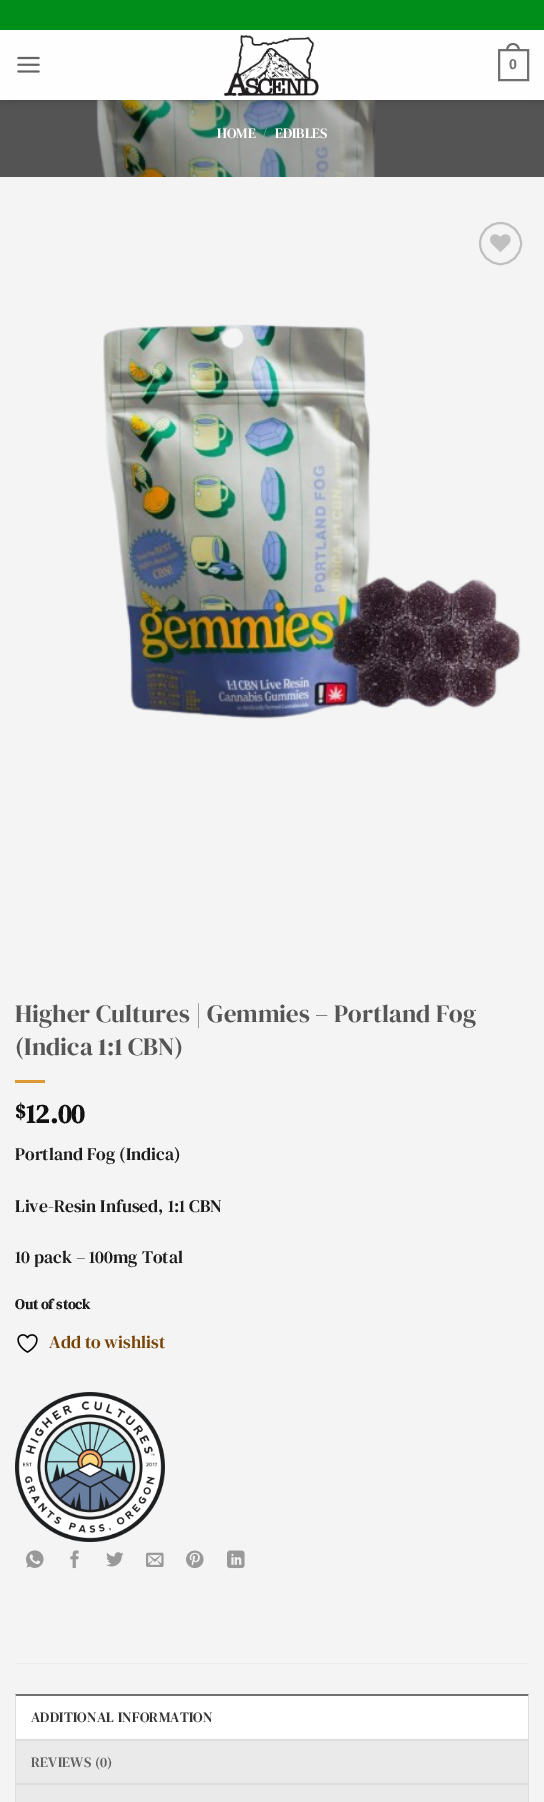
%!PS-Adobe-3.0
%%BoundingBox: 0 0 544 1802
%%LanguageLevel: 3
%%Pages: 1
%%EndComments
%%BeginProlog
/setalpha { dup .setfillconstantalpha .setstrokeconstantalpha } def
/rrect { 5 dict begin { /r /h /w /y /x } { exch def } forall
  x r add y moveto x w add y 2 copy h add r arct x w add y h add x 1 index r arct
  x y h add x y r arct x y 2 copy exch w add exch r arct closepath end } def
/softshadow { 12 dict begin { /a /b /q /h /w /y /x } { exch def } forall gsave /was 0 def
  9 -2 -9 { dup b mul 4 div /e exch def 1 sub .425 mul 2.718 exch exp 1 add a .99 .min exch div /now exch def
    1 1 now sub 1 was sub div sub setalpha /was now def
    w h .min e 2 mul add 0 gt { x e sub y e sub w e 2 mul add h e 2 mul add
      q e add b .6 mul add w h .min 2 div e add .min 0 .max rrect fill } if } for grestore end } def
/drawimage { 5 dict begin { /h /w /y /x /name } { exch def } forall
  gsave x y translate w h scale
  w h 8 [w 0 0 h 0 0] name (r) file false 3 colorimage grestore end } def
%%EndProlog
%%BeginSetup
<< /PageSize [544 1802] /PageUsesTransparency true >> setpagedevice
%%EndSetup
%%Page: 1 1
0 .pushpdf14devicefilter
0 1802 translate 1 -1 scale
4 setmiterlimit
0.957 setgray
0 0 544 1802 rectfill
0.439 setgray
0 100 544 77 rectfill
(images/3.raw) 96 100 280 77 drawimage
0.25 setalpha
0 setgray
0 100 544 77 rectfill
1 setalpha
1 1 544 100 0 5 0.15 softshadow
0 0.557 0.102 setrgbcolor
0 0 544 30 rectfill
0.996 setgray
0 30 544 70 rectfill
(images/1.raw) 17 56 23 17 drawimage
(images/2.raw) 223 34 96 62 drawimage
0.439 setgray
2 setlinewidth
499 50 29 30 rectstroke
newpath 513 43 moveto 517.5 43 520 47 520 51 curveto 506 51 lineto 506 47 508.5 43 513 43 curveto closepath 513 45 moveto 516.5 45 518 48 518 51 curveto 508 51 lineto 508 48 509.5 45 513 45 curveto closepath eofill
0.1 setalpha
0.11 setgray
15 100 514 1 rectfill
1 setalpha
0.753 setgray
newpath 500.5 243.5 20.5 0 360 arc closepath stroke
(images/4.raw) 490 234 21 18 drawimage
(images/5.raw) 103 324 418 395 drawimage
0.867 0.6 0.2 setrgbcolor
15 1080 30 3 rectfill
(images/6.raw) 17 1334 21 19 drawimage
(images/7.raw) 15 1392 150 150 drawimage
(images/8.raw) 26 1550 18 18 drawimage
(images/9.raw) 70 1550 9 19 drawimage
(images/10.raw) 106 1552 18 15 drawimage
(images/11.raw) 146 1552 18 15 drawimage
(images/12.raw) 186 1550 18 19 drawimage
(images/13.raw) 227 1550 18 19 drawimage
0.925 setgray
15 1663 514 1 rectfill
1 setgray
15 1694 514 45 rectfill
0.439 setgray
newpath 15 1694 moveto 529 1694 lineto 528 1696 lineto 16 1696 lineto closepath fill
0.867 setgray
newpath 529 1694 moveto 529 1739 lineto 528 1739 lineto 528 1696 lineto closepath fill
newpath 15 1739 moveto 15 1694 lineto 16 1696 lineto 16 1739 lineto closepath fill
0.918 setgray
16 1741 512 42 rectfill
0.867 setgray
15 1739 514 2 rectfill
528 1739 1 44 rectfill
15 1739 1 44 rectfill
0.918 setgray
16 1785 512 17 rectfill
0.867 setgray
15 1783 514 2 rectfill
528 1783 1 19 rectfill
15 1783 1 19 rectfill
/LiberationSans-Bold [14.25 0 0 -14.25 0 0] selectfont
0.439 setgray
509 69 moveto (0) show
/DMSerifText-Regular [14.25 0 0 -14.25 0 0] selectfont
1 setgray
217 138 moveto (HOME) show
0.537 0.686 0.647 setrgbcolor
262 138 moveto (/) show
1 setgray
275 138 moveto (EDIBLES) show
/DMSerifDisplay-Regular [24.9 0 0 -24.9 0 0] selectfont
0.333 setgray
15 1022 moveto (Higher Cultures | Gemmies – Portland Fog) show
15 1055 moveto (\(Indica 1:1 CBN\)) show
/DMSerifText-Bold [20 0 0 -20 0 0] selectfont
0.067 setgray
15 1118 moveto ($) show
/DMSerifText-Bold [27 0 0 -27 0 0] selectfont
26 1123 moveto (12.00) show
/DMSerifText-Regular [17.75 0 0 -17.75 0 0] selectfont
0.11 setgray
15 1160 moveto (Portland Fog \(Indica\)) show
15 1212 moveto (Live-Resin Infused, 1:1 CBN) show
15 1263 moveto (10 pack – 100mg Total) show
/DMSerifText-Bold [14.25 0 0 -14.25 0 0] selectfont
15 1309 moveto (Out of stock) show
/DMSerifText-Regular [17.75 0 0 -17.75 0 0] selectfont
0.467 0.263 0.012 setrgbcolor
49 1348 moveto (Add to wishlist) show
/DMSerifText-Regular [14.25 0 0 -14.25 0 0] selectfont
0.212 setgray
31 1722 moveto 0.25 0 (ADDITIONAL INFORMATION) ashow
0.384 setgray
31 1767 moveto 0.25 0 (REVIEWS \(0\)) ashow
.poppdf14devicefilter showpage
%%EOF
